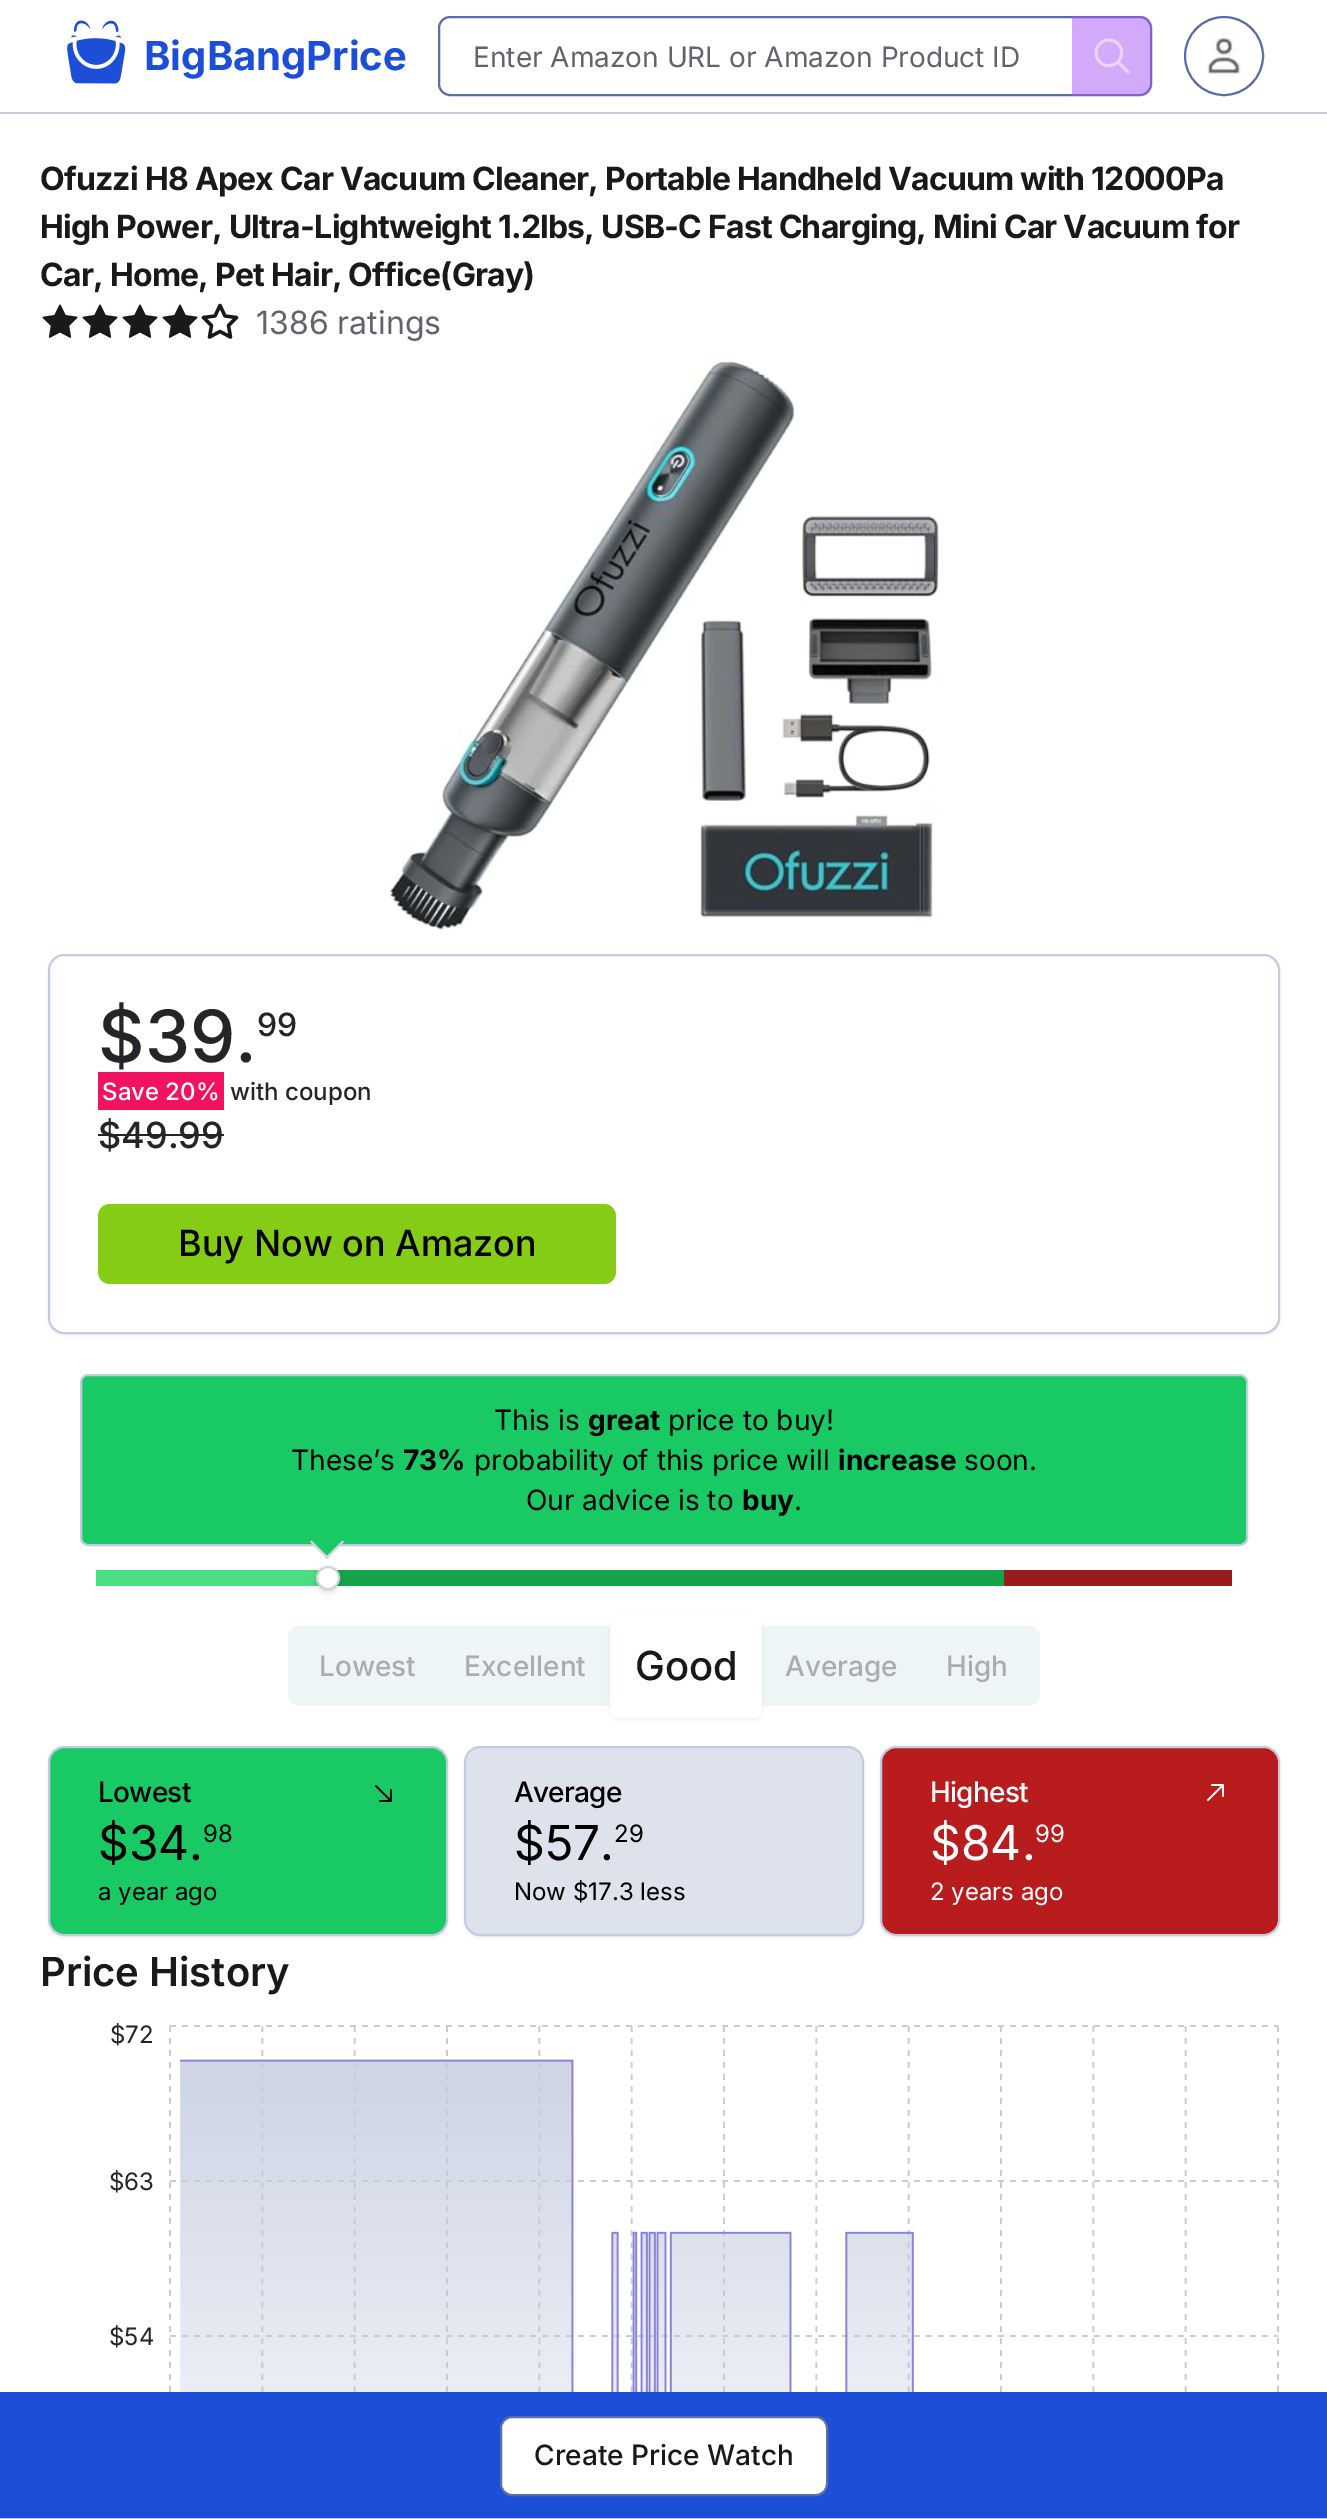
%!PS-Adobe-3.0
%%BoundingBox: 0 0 1327 2519
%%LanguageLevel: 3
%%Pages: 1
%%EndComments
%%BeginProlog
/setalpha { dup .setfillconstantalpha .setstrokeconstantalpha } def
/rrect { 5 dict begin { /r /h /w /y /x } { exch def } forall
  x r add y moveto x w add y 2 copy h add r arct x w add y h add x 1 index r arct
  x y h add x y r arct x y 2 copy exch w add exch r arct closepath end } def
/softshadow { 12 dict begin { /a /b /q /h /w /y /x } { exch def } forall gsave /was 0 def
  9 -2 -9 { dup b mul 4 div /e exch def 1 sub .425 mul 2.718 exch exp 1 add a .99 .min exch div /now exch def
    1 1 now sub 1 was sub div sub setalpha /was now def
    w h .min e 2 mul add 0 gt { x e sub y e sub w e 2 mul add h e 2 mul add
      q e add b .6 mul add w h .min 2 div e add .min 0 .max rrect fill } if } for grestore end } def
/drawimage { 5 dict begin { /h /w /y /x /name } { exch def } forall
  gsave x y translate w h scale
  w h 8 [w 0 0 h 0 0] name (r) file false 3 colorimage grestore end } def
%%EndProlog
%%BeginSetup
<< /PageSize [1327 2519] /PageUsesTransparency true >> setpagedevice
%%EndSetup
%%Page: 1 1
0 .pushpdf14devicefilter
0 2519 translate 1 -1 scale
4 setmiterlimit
1 setgray
0 0 1327 2519 rectfill
0.765 0.796 0.875 setrgbcolor
0 112 1327 2 rectfill
(images/1.raw) 67 20 59 64 drawimage
0.349 0.427 0.651 setrgbcolor
2 setlinewidth
439 17 712 78 11 rrect stroke
0.5 setalpha
0.659 0.333 0.969 setrgbcolor
newpath 1072 16 moveto 1140 16 lineto 1146.5 16 1152 21.5 1152 28 curveto 1152 84 lineto 1152 90.5 1146.5 96 1140 96 curveto 1072 96 lineto closepath fill
1 setalpha
(images/2.raw) 1094 38 36 36 drawimage
0.349 0.427 0.651 setrgbcolor
newpath 1224 56 39 0 360 arc closepath stroke
(images/3.raw) 1206 37 36 38 drawimage
(images/4.raw) 42 304 36 34 drawimage
(images/4.raw) 82 304 36 34 drawimage
(images/4.raw) 122 304 36 34 drawimage
(images/4.raw) 162 304 36 34 drawimage
0.094 0.098 0.106 setrgbcolor
3.3 setlinewidth
1 setlinecap
1 setlinejoin
newpath 220 305.5 moveto 225 316 lineto 236.5 317.5 lineto 228.5 325.5 lineto 230.5 337 lineto 220 331.5 lineto 209.5 337 lineto 211.5 325.5 lineto 203.5 317.5 lineto 215 316 lineto closepath stroke
(images/5.raw) 201 315 3 6 drawimage
(images/6.raw) 390 361 550 569 drawimage
0 setgray
48 956 1232 380 16 2 0.05 softshadow
1 setgray
49 955 1230 378 15 rrect gsave fill grestore
0.765 0.796 0.875 setrgbcolor
2 setlinewidth
0 setlinecap
0 setlinejoin
stroke
0.953 0.071 0.376 setrgbcolor
98 1072 126 38 rectfill
0.141 0.145 0.157 setrgbcolor
98 1134 126 2 rectfill
0.518 0.8 0.086 setrgbcolor
98 1204 518 80 12 rrect fill
0.094 0.788 0.392 setrgbcolor
81 1375 1166 170 7 rrect gsave fill grestore
0.765 0.796 0.875 setrgbcolor
stroke
0.094 0.788 0.392 setrgbcolor
newpath 327 1525 moveto 342.5 1540.5 lineto 327 1556 lineto 311.5 1540.5 lineto closepath fill
0.82 0.835 0.859 setrgbcolor
newpath 342.5 1540.5 moveto 344 1542 lineto 327 1559 lineto 325.5 1557.5 lineto closepath fill
newpath 311.5 1540.5 moveto 328.5 1557.5 lineto 327 1559 lineto 310 1542 lineto closepath fill
0.29 0.871 0.502 setrgbcolor
96 1570 224 16 rectfill
0.086 0.639 0.29 setrgbcolor
336 1570 668 16 rectfill
0 setgray
318 1570 20 20 10 2 0.1 softshadow
316 1568 24 24 12 3 0.1 softshadow
1 setgray
newpath 328 1578 11 0 360 arc closepath gsave fill grestore
0.82 0.835 0.859 setrgbcolor
stroke
0.6 0.106 0.106 setrgbcolor
1004 1570 228 16 rectfill
0.933 0.961 0.965 setrgbcolor
288 1626 752 80 12 rrect fill
0 setgray
610 1616 152 104 8 2 0.05 softshadow
1 setgray
610 1614 152 104 8 rrect fill
0 setgray
48 1748 400 190 16 2 0.05 softshadow
0.094 0.788 0.392 setrgbcolor
49 1747 398 188 15 rrect gsave fill grestore
0.765 0.796 0.875 setrgbcolor
stroke
(images/7.raw) 375 1785 17 17 drawimage
0 setgray
464 1748 400 190 16 2 0.05 softshadow
0.871 0.886 0.929 setrgbcolor
465 1747 398 188 15 rrect gsave fill grestore
0.765 0.796 0.875 setrgbcolor
stroke
0 setgray
880 1748 400 190 16 2 0.05 softshadow
0.725 0.11 0.11 setrgbcolor
881 1747 398 188 15 rrect gsave fill grestore
0.765 0.796 0.875 setrgbcolor
stroke
(images/8.raw) 1207 1784 17 17 drawimage
(images/9.raw) 169 2025 1110 367 drawimage
0.114 0.306 0.847 setrgbcolor
0 2392 1327 126 rectfill
0.765 0.796 0.875 setrgbcolor
0 2518 1327 1 rectfill
1 setgray
501 2417 326 78 11 rrect gsave fill grestore
0.349 0.427 0.651 setrgbcolor
stroke
/Inter-Bold [40 0 0 -40 0 0] selectfont
0.114 0.306 0.847 setrgbcolor
144 70 moveto (BigBangPrice) show
/Inter-Regular [28 0 0 -28 0 0] selectfont
0.38 0.392 0.42 setrgbcolor
473 67 moveto (Enter Amazon URL or Amazon Product ID) show
/Inter-Bold [32 0 0 -32 0 0] selectfont
0.094 0.098 0.106 setrgbcolor
40 190 moveto -0.8 0 (Ofuzzi H8 Apex Car Vacuum Cleaner, Portable Handheld Vacuum with 12000Pa) ashow
40 238 moveto -0.8 0 (High Power, Ultra-Lightweight 1.2lbs, USB-C Fast Charging, Mini Car Vacuum for) ashow
40 286 moveto -0.8 0 (Car, Home, Pet Hair, Office\(Gray\)) ashow
/Inter-Regular [32 0 0 -32 0 0] selectfont
0.38 0.392 0.42 setrgbcolor
256 334 moveto (1386 ratings) show
/Inter-Medium [72 0 0 -72 0 0] selectfont
0.141 0.145 0.157 setrgbcolor
98 1062 moveto ($39.) show
/Inter-Medium [32 0 0 -32 0 0] selectfont
257 1036 moveto (99) show
/Inter-Medium [24 0 0 -24 0 0] selectfont
1 setgray
102 1100 moveto (Save 20%) show
0.141 0.145 0.157 setrgbcolor
230 1100 moveto (with coupon) show
/Inter-Medium [36 0 0 -36 0 0] selectfont
98 1148 moveto ($49.99) show
0 setgray
178 1256 moveto (Buy Now on Amazon) show
/Inter-Regular [28 0 0 -28 0 0] selectfont
494 1430 moveto (This is) show
/Inter-Bold [28 0 0 -28 0 0] selectfont
588 1430 moveto (great) show
/Inter-Regular [28 0 0 -28 0 0] selectfont
668 1430 moveto (price to buy!) show
291 1470 moveto (These’s) show
/Inter-Bold [28 0 0 -28 0 0] selectfont
403 1470 moveto (73%) show
/Inter-Regular [28 0 0 -28 0 0] selectfont
474 1470 moveto (probability of this price will) show
/Inter-Bold [28 0 0 -28 0 0] selectfont
838 1470 moveto (increase) show
/Inter-Regular [28 0 0 -28 0 0] selectfont
964 1470 moveto (soon.) show
526 1510 moveto (Our advice is to) show
/Inter-Bold [28 0 0 -28 0 0] selectfont
742 1510 moveto (buy) show
/Inter-Regular [28 0 0 -28 0 0] selectfont
794 1510 moveto (.) show
/Inter-Medium [28 0 0 -28 0 0] selectfont
0.659 0.678 0.694 setrgbcolor
319 1676 moveto (Lowest) show
464 1676 moveto (Excellent) show
/Inter-Medium [40 0 0 -40 0 0] selectfont
0.094 0.098 0.106 setrgbcolor
635 1680 moveto (Good) show
/Inter-Medium [28 0 0 -28 0 0] selectfont
0.659 0.678 0.694 setrgbcolor
785 1676 moveto (Average) show
946 1676 moveto (High) show
0 setgray
98 1802 moveto -0.75 0 (Lowest) ashow
/Inter-Regular [48 0 0 -48 0 0] selectfont
98 1860 moveto ($34.) show
/Inter-Regular [24 0 0 -24 0 0] selectfont
203 1842 moveto (98) show
98 1900 moveto (a year ago) show
/Inter-Medium [28 0 0 -28 0 0] selectfont
514 1802 moveto -0.75 0 (Average) ashow
/Inter-Regular [48 0 0 -48 0 0] selectfont
514 1860 moveto ($57.) show
/Inter-Regular [24 0 0 -24 0 0] selectfont
614 1842 moveto (29) show
514 1900 moveto (Now $17.3 less) show
/Inter-Medium [28 0 0 -28 0 0] selectfont
1 setgray
930 1802 moveto -0.75 0 (Highest) ashow
/Inter-Regular [48 0 0 -48 0 0] selectfont
930 1860 moveto ($84.) show
/Inter-Regular [24 0 0 -24 0 0] selectfont
1035 1842 moveto (99) show
930 1900 moveto (2 years ago) show
/Inter-SemiBold [40 0 0 -40 0 0] selectfont
0.094 0.098 0.106 setrgbcolor
40 1986 moveto (Price History) show
/Inter-Regular [24 0 0 -24 0 0] selectfont
0.141 0.145 0.157 setrgbcolor
110 2043 moveto ($72) show
109 2190 moveto ($63) show
109 2345 moveto ($54) show
/Inter-Medium [28 0 0 -28 0 0] selectfont
0.094 0.098 0.106 setrgbcolor
534 2465 moveto (Create Price Watch) show
.poppdf14devicefilter showpage
%%EOF
